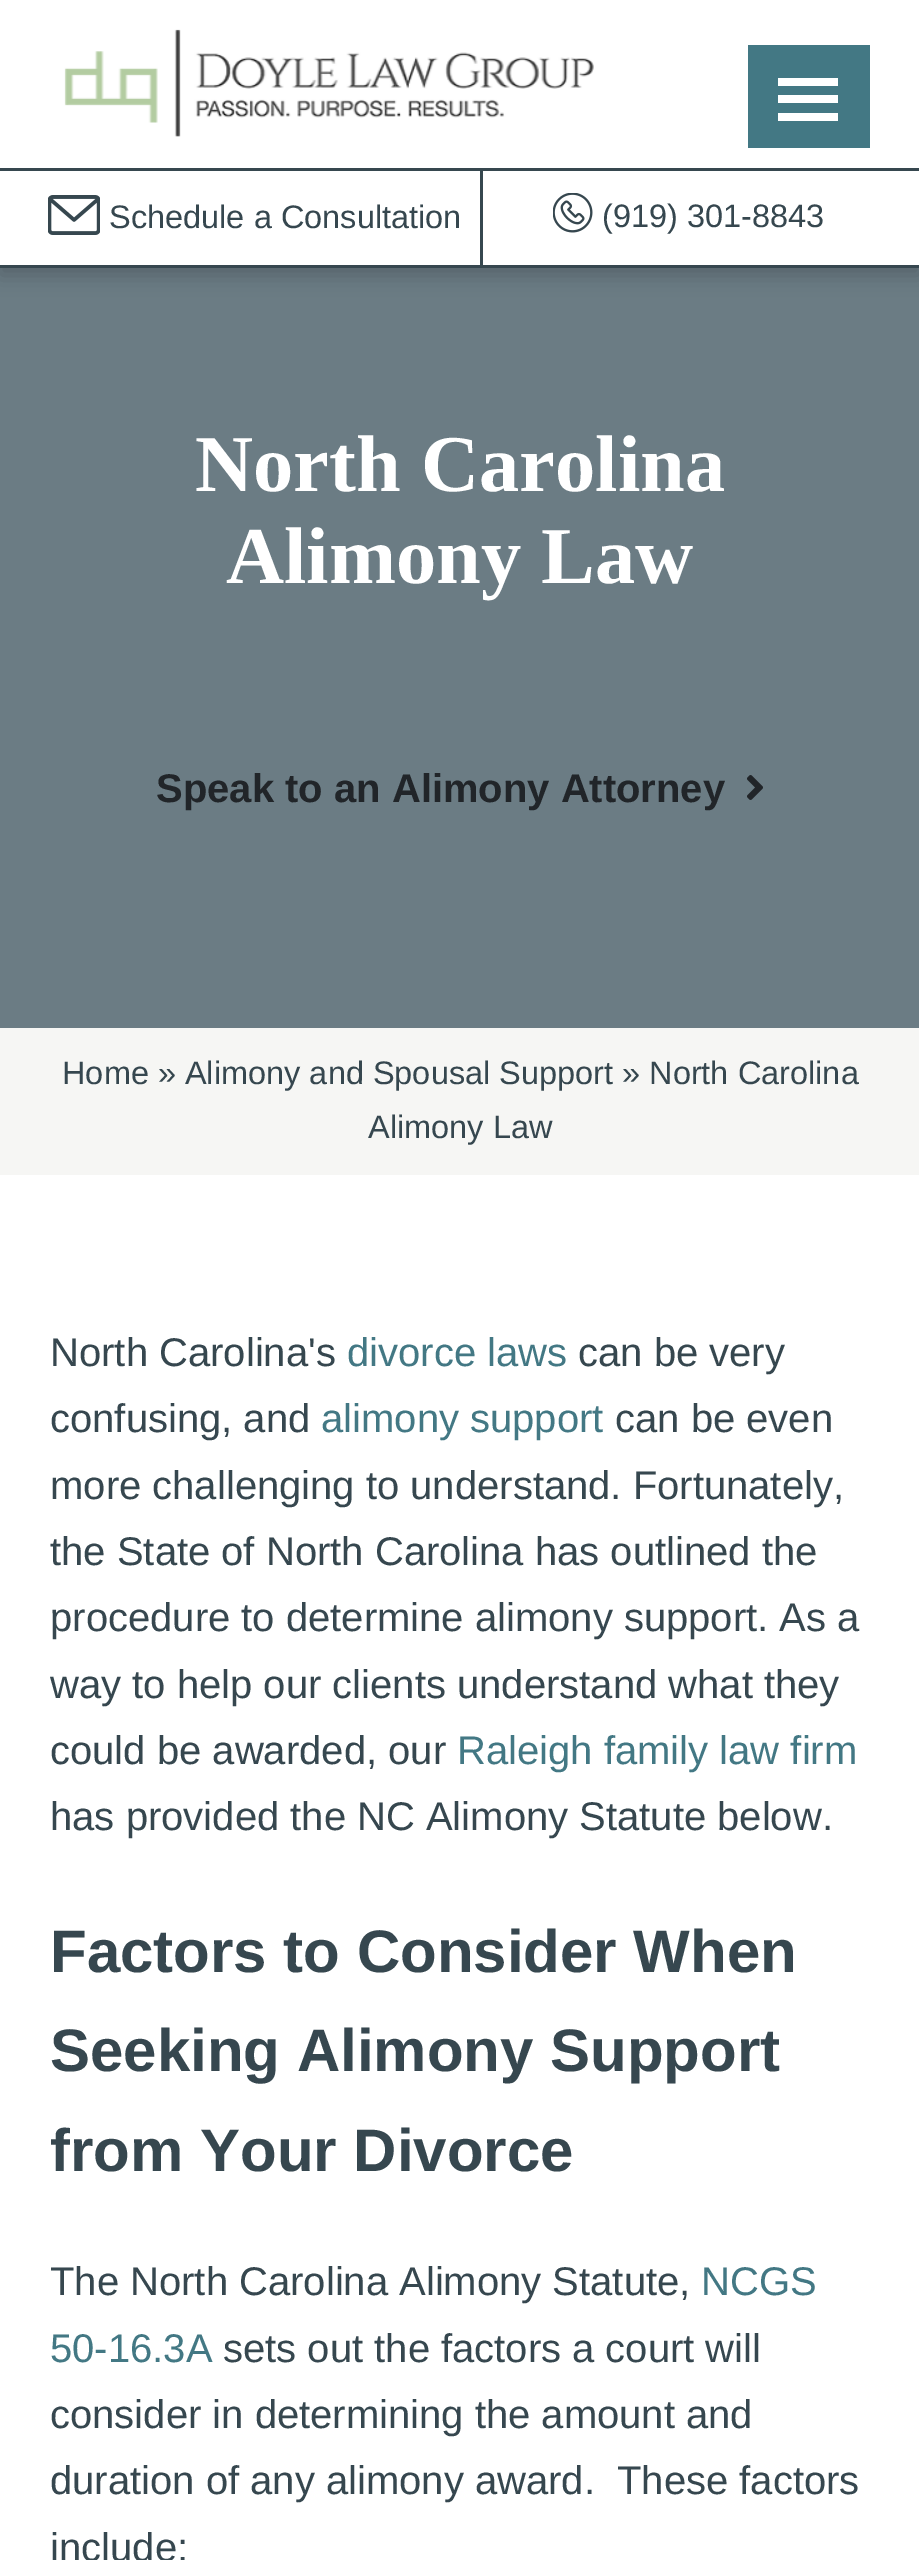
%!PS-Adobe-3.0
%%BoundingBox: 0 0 919 2560
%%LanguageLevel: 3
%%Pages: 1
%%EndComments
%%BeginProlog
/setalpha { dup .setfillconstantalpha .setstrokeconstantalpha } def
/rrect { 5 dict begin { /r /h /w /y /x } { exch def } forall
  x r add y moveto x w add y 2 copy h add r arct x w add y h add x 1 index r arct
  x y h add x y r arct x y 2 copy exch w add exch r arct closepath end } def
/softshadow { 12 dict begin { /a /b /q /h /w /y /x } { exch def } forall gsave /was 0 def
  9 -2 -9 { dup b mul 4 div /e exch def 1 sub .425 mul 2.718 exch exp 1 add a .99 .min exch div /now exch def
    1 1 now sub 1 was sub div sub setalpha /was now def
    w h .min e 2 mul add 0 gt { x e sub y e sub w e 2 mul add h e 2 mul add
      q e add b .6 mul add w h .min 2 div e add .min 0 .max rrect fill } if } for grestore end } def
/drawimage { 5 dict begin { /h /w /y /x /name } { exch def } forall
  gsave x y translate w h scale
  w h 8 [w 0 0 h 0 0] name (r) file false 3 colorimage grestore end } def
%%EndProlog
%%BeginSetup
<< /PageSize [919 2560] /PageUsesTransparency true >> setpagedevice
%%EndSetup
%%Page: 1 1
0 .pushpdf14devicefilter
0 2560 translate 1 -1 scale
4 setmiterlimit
1 setgray
0 0 919 2560 rectfill
0.42 0.486 0.518 setrgbcolor
0 268 919 760 rectfill
0 setgray
0 8 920 267 0 10 0.2 softshadow
1 setgray
0 0 919 265 rectfill
(images/1.raw) 64 29 530 108 drawimage
0.263 0.471 0.518 setrgbcolor
748 45 122 103 rectfill
1 setgray
778 78 60 8 rectfill
778 95 60 8 rectfill
778 113 60 8 rectfill
0.212 0.278 0.31 setrgbcolor
0 168 919 3 rectfill
0 265 919 3 rectfill
480 170 3 95 rectfill
(images/2.raw) 48 195 52 40 drawimage
(images/3.raw) 553 193 40 40 drawimage
(images/4.raw) 747 775 16 25 drawimage
0.965 0.965 0.957 setrgbcolor
0 1028 919 147 rectfill
/LiberationSans-Regular [32.5 0 0 -32.5 0 0] selectfont
0.212 0.278 0.31 setrgbcolor
109 228 moveto (Schedule a Consultation) show
602 227 moveto (\(919\) 301-8843) show
/LiberationSerif-Bold [80.5 0 0 -80.5 0 0] selectfont
1 setgray
195 491 moveto (North Carolina) show
226 583 moveto (Alimony Law) show
/LiberationSans-Bold [40 0 0 -40 0 0] selectfont
0.129 0.145 0.161 setrgbcolor
156 802 moveto (Speak to an Alimony Attorney) show
/LiberationSans-Regular [32.5 0 0 -32.5 0 0] selectfont
0.212 0.278 0.31 setrgbcolor
62 1084 moveto (Home » Alimony and Spousal Support » North Carolina) show
368 1138 moveto (Alimony Law) show
/LiberationSans-Regular [40 0 0 -40 0 0] selectfont
50 1366 moveto (North Carolina's) show
0.263 0.471 0.518 setrgbcolor
347 1366 moveto (divorce laws) show
0.212 0.278 0.31 setrgbcolor
578 1366 moveto (can be very) show
50 1432 moveto (confusing, and) show
0.263 0.471 0.518 setrgbcolor
321 1432 moveto (alimony support) show
0.212 0.278 0.31 setrgbcolor
615 1432 moveto (can be even) show
50 1499 moveto (more challenging to understand. Fortunately,) show
50 1565 moveto (the State of North Carolina has outlined the) show
50 1631 moveto (procedure to determine alimony support. As a) show
50 1698 moveto (way to help our clients understand what they) show
50 1764 moveto (could be awarded, our) show
0.263 0.471 0.518 setrgbcolor
457 1764 moveto (Raleigh family law firm) show
0.212 0.278 0.31 setrgbcolor
50 1830 moveto (has provided the NC Alimony Statute below.) show
/LiberationSans-Bold [60 0 0 -60 0 0] selectfont
50 1972 moveto (Factors to Consider When) show
50 2071 moveto (Seeking Alimony Support) show
50 2171 moveto (from Your Divorce) show
/LiberationSans-Regular [40 0 0 -40 0 0] selectfont
50 2295 moveto (The North Carolina Alimony Statute,) show
0.263 0.471 0.518 setrgbcolor
701 2295 moveto (NCGS) show
50 2362 moveto (50-16.3A) show
0.212 0.278 0.31 setrgbcolor
223 2362 moveto (sets out the factors a court will) show
50 2428 moveto (consider in determining the amount and) show
50 2494 moveto (duration of any alimony award.  These factors) show
50 2561 moveto (include:) show
.poppdf14devicefilter showpage
%%EOF
